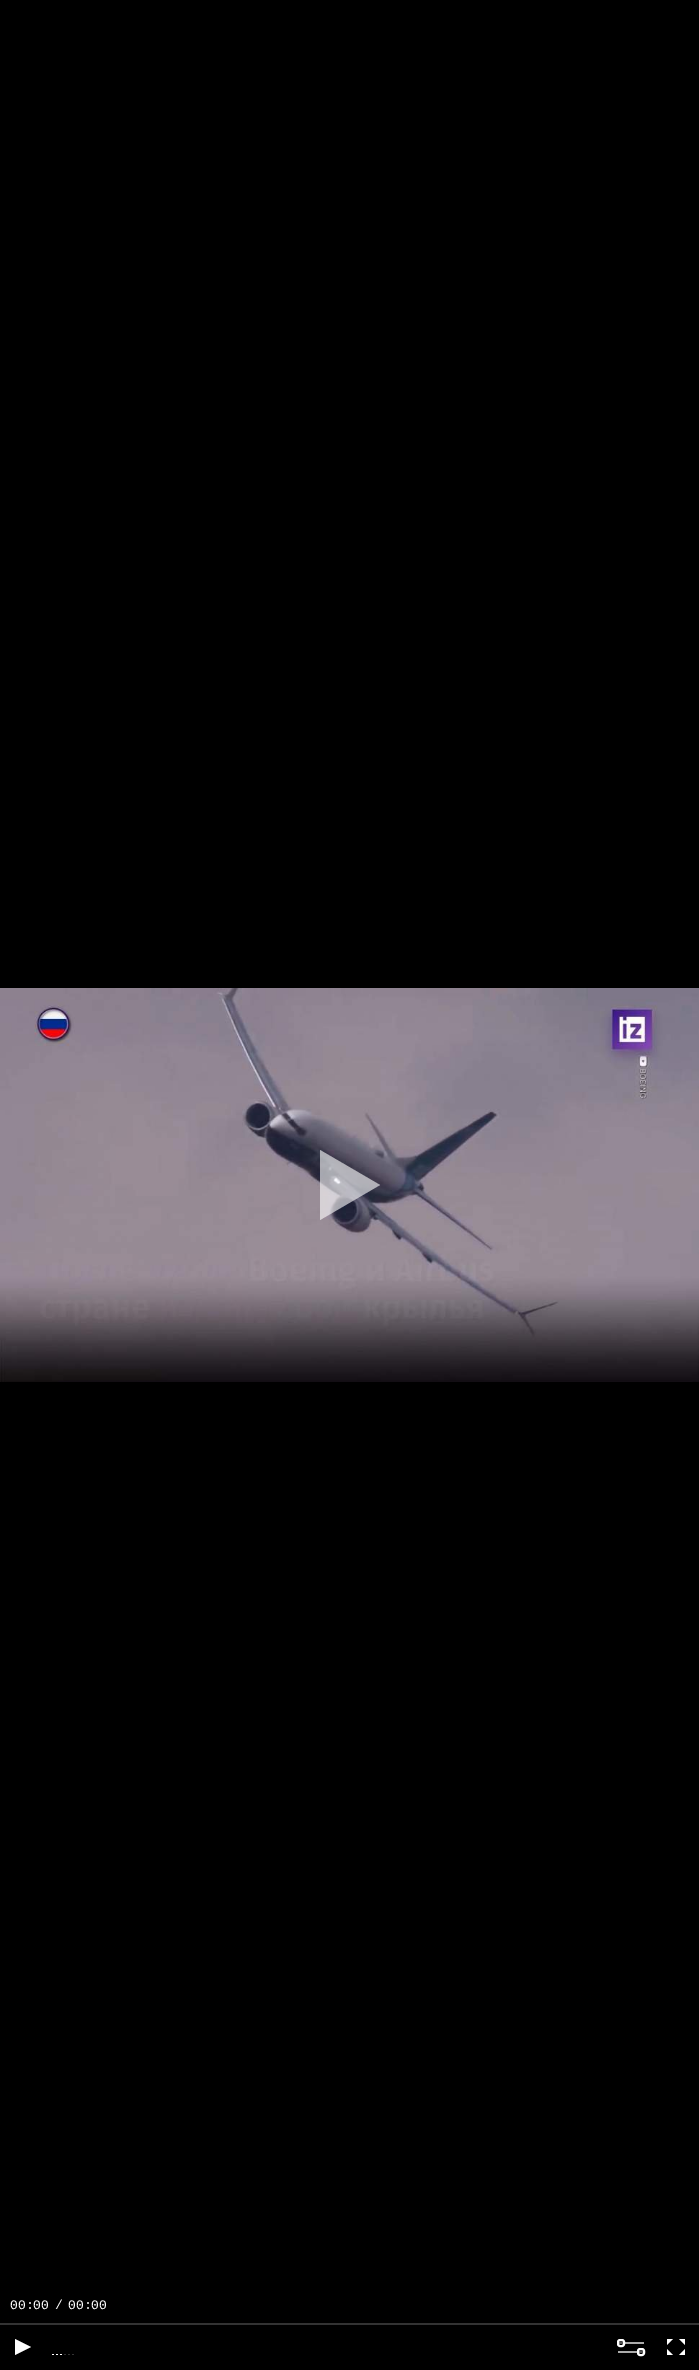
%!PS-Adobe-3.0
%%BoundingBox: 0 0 699 2370
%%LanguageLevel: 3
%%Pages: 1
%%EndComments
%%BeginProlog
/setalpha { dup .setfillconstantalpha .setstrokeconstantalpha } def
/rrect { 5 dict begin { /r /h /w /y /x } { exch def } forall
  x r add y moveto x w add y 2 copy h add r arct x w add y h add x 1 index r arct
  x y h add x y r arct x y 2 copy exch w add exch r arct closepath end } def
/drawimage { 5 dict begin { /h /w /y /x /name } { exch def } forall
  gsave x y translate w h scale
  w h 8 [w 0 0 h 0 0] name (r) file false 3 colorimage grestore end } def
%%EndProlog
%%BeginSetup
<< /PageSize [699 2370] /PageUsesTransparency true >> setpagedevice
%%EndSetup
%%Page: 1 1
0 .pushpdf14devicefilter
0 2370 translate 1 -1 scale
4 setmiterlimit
0 setgray
0 0 699 2370 rectfill
(images/1.raw) 0 988 699 394 drawimage
0.6 setalpha
1 setgray
newpath 320 1220 moveto 320 1150 lineto 380 1185 lineto closepath fill
1 setalpha
newpath 15 2355 moveto 15 2339 lineto 31 2347 lineto closepath fill
52 2354 2 1 rectfill
56 2354 2 1 rectfill
60 2354 2 1 rectfill
0.2 setgray
64 2354 2 1 rectfill
68 2354 2 1 rectfill
72 2354 2 1 rectfill
0.671 setgray
618 2342 26 2 rectfill
618 2351 26 2 rectfill
0.5 setalpha
0 setgray
618 2340 6 6 2 rrect fill
1 setalpha
1 setgray
2 setlinewidth
618 2340 6 6 2 rrect stroke
0.5 setalpha
0 setgray
638 2349 6 6 2 rrect fill
1 setalpha
1 setgray
638 2349 6 6 2 rrect stroke
newpath 685 2339 moveto 685 2345 lineto 679 2339 lineto closepath 667 2345 moveto 667 2339 lineto 673 2339 lineto closepath 685 2349 moveto 685 2355 lineto 679 2355 lineto closepath fill
newpath 667 2355 moveto 667 2349 lineto 673 2355 lineto closepath fill
0.2 setgray
0 2323 699 2 rectfill
/LiberationMono-Regular [13 0 0 -13 0 0] selectfont
1 setgray
10 2309 moveto (00:00) show
55 2309 moveto (/) show
68 2309 moveto (00:00) show
.poppdf14devicefilter showpage
%%EOF
